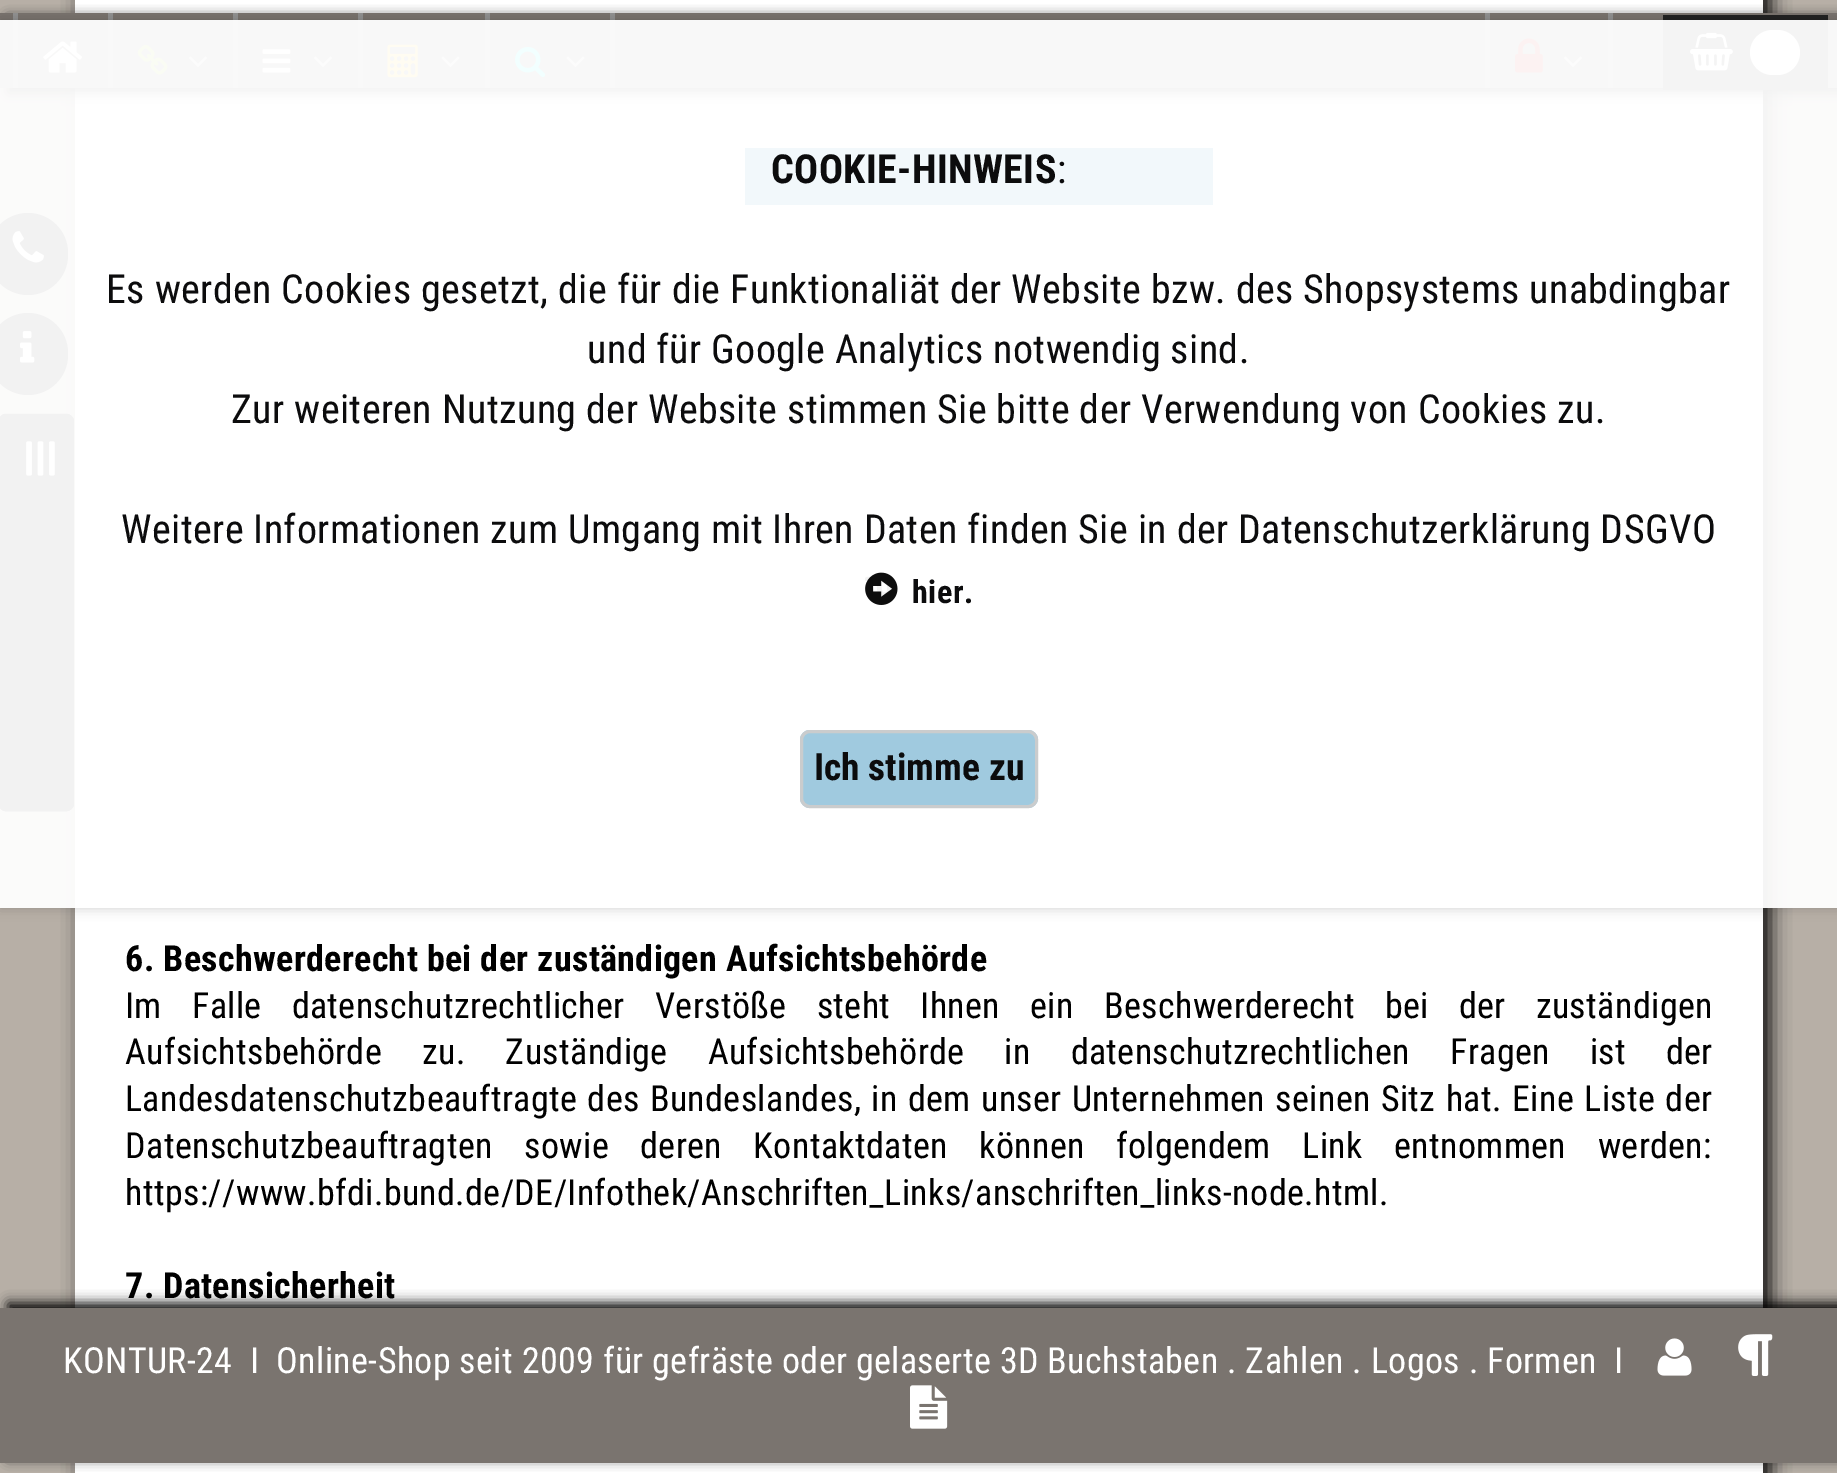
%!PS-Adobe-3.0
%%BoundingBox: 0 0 1837 1473
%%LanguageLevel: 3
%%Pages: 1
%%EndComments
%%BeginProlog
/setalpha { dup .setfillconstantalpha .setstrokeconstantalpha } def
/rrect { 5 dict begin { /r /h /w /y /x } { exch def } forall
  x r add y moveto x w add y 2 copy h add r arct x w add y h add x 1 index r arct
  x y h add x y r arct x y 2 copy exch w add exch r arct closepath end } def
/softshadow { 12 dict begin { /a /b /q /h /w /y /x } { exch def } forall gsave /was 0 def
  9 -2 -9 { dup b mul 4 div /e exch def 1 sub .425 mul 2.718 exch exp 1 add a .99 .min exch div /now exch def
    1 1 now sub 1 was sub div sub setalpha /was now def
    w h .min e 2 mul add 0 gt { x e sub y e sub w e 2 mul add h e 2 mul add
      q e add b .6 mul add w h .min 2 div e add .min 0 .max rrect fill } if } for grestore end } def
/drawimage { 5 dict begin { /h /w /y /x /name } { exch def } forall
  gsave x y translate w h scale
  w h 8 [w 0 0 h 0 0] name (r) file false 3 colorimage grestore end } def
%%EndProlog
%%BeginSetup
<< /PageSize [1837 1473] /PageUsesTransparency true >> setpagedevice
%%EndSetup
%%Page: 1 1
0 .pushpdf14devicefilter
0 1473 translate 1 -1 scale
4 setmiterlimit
0.718 0.686 0.651 setrgbcolor
0 0 1837 1473 rectfill
0 setgray
83 -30 1687 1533 0 10 1 softshadow
1 setgray
75 0 1688 1473 rectfill
0 setgray
8 18 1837 75 0 6 1 softshadow
0.478 0.455 0.435 setrgbcolor
0 13 1837 75 rectfill
0.569 setgray
13 13 5 75 rectfill
(images/1.raw) 43 41 40 32 drawimage
108 13 5 75 rectfill
(images/2.raw) 137 45 31 30 drawimage
(images/3.raw) 189 56 18 11 drawimage
233 13 5 75 rectfill
(images/4.raw) 262 49 29 24 drawimage
(images/3.raw) 314 56 18 11 drawimage
358 13 5 75 rectfill
(images/5.raw) 387 44 31 34 drawimage
(images/6.raw) 441 56 19 11 drawimage
485 13 5 75 rectfill
(images/7.raw) 515 47 31 31 drawimage
(images/6.raw) 566 56 19 11 drawimage
610 13 5 75 rectfill
1485 13 5 75 rectfill
(images/8.raw) 1515 38 28 35 drawimage
(images/3.raw) 1564 56 18 11 drawimage
1608 13 5 75 rectfill
0.133 setgray
1663 15 165 75 rectfill
(images/9.raw) 1690 32 43 39 drawimage
1 setgray
1750 30 50 45 22.5 rrect fill
0 0.467 0.698 setrgbcolor
745 148 468 57 rectfill
0 setgray
-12 213 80 82 40 rrect fill
(images/10.raw) 12 231 32 32 drawimage
-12 313 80 82 40 rrect fill
(images/12.raw) 20 331 15 32 drawimage
newpath 74 421 moveto 74 804 lineto 74 808 70 811 66 811 curveto 6 811 lineto 2 811 -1 808 -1 804 curveto -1 421 lineto -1 417 2 414 6 414 curveto 66 414 lineto 70 414 74 417 74 421 curveto closepath fill
2.5 setlinewidth
newpath 72.5 421.5 moveto 72.5 803.5 lineto 72.5 807 69.5 810 66 810 curveto 6 810 lineto 2.5 810 0 807 0 803.5 curveto 0 421.5 lineto 0 418 2.5 415 6 415 curveto 66 415 lineto 69.5 415 72.5 418 72.5 421.5 curveto closepath stroke
(images/13.raw) 26 441 29 35 drawimage
gsave
newpath 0 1 moveto 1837 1 lineto 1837 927 lineto 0 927 lineto closepath 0 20 moveto 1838 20 lineto 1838 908 lineto 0 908 lineto closepath eoclip newpath
0 20 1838 888 0 6 0.19 softshadow
grestore
0.95 setalpha
1 setgray
0 20 1837 888 rectfill
1 setalpha
(images/11.raw) 865 572 33 33 drawimage
0.95 setalpha
0.608 0.78 0.867 setrgbcolor
800 730 238 78 10 rrect fill
0.8 setgray
3 setlinewidth
801.5 731.5 235 75 8.5 rrect stroke
1 setalpha
0 setgray
8 1303 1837 155 0 6 1 softshadow
0.478 0.455 0.435 setrgbcolor
0 1308 1837 155 rectfill
(images/14.raw) 1657 1338 35 38 drawimage
(images/15.raw) 1738 1334 35 42 drawimage
(images/16.raw) 910 1385 38 44 drawimage
/RobotoCondensed-Bold [40 0 0 -40 0 0] selectfont
0.047 0.047 0.051 setrgbcolor
771 183 moveto 0.4 0 (COOKIE-HINWEIS) ashow
/RobotoCondensed-Regular [40 0 0 -40 0 0] selectfont
1057 183 moveto 0.4 0 (:) ashow
106 303 moveto 0.4 0 (Es werden Cookies gesetzt, die für die Funktionaliät der Website bzw. des Shopsystems unabdingbar) ashow
587 363 moveto 0.4 0 (und für Google Analytics notwendig sind.) ashow
231 423 moveto 0.4 0 (Zur weiteren Nutzung der Website stimmen Sie bitte der Verwendung von Cookies zu.) ashow
121 543 moveto 0.4 0 (Weitere Informationen zum Umgang mit Ihren Daten finden Sie in der Datenschutzerklärung DSGVO) ashow
/RobotoCondensed-Bold [32 0 0 -32 0 0] selectfont
912 603 moveto 0.5 0 (hier.) ashow
/RobotoCondensed-Bold [37.5 0 0 -37.5 0 0] selectfont
814 780 moveto (Ich stimme zu) show
/RobotoCondensed-Bold [36 0 0 -36 0 0] selectfont
0 setgray
125 971 moveto 0.36 0 (6. Beschwerderecht bei der zuständigen Aufsichtsbehörde) ashow
/RobotoCondensed-Regular [36 0 0 -36 0 0] selectfont
125 1018 moveto 21.4 0 32 0.36 0 (Im Falle datenschutzrechtlicher Verstöße steht Ihnen ein Beschwerderecht bei der zuständigen) awidthshow
125 1064 moveto 31.25 0 32 0.36 0 (Aufsichtsbehörde zu. Zuständige Aufsichtsbehörde in datenschutzrechtlichen Fragen ist der) awidthshow
125 1111 moveto 1.5 0 32 0.36 0 (Landesdatenschutzbeauftragte des Bundeslandes, in dem unser Unternehmen seinen Sitz hat. Eine Liste der) awidthshow
125 1158 moveto 22.75 0 32 0.36 0 (Datenschutzbeauftragten sowie deren Kontaktdaten können folgendem Link entnommen werden:) awidthshow
125 1205 moveto 0.36 0 (https://www.bfdi.bund.de/DE/Infothek/Anschriften_Links/anschriften_links-node.html.) ashow
/RobotoCondensed-Bold [36 0 0 -36 0 0] selectfont
125 1298 moveto 0.36 0 (7. Datensicherheit) ashow
/RobotoCondensed-Regular [36 0 0 -36 0 0] selectfont
1 setgray
63 1373 moveto 0.36 0 (KONTUR-24  I  Online-Shop seit 2009 für gefräste oder gelaserte 3D Buchstaben . Zahlen . Logos . Formen  I) ashow
.poppdf14devicefilter showpage
%%EOF
